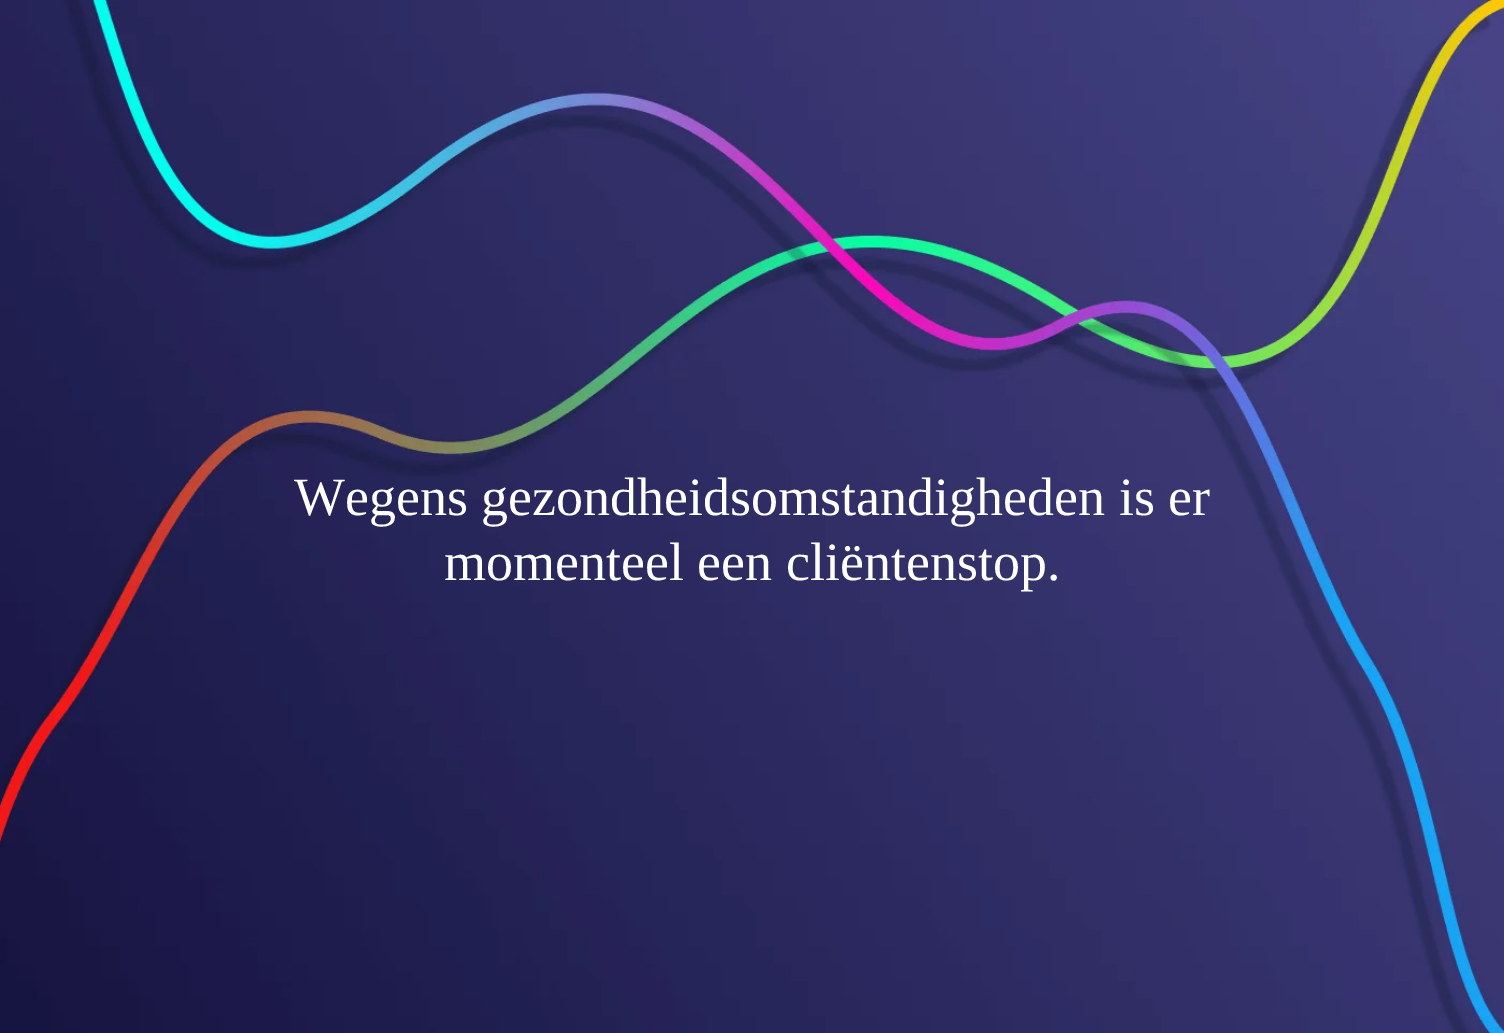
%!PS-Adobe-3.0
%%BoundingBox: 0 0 1504 1033
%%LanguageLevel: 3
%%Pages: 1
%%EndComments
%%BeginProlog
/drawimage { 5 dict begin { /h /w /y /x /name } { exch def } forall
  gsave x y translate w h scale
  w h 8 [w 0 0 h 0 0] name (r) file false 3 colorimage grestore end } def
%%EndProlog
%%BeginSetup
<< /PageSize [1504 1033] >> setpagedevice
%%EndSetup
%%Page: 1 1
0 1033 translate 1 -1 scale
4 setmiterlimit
1 setgray
0 0 1504 1033 rectfill
(images/1.raw) 0 0 1504 1033 drawimage
/LiberationSerif-Regular [54 0 0 -54 0 0] selectfont
294 515 moveto (Wegens gezondheidsomstandigheden is er) show
444 580 moveto (momenteel een cliëntenstop.) show
showpage
%%EOF
